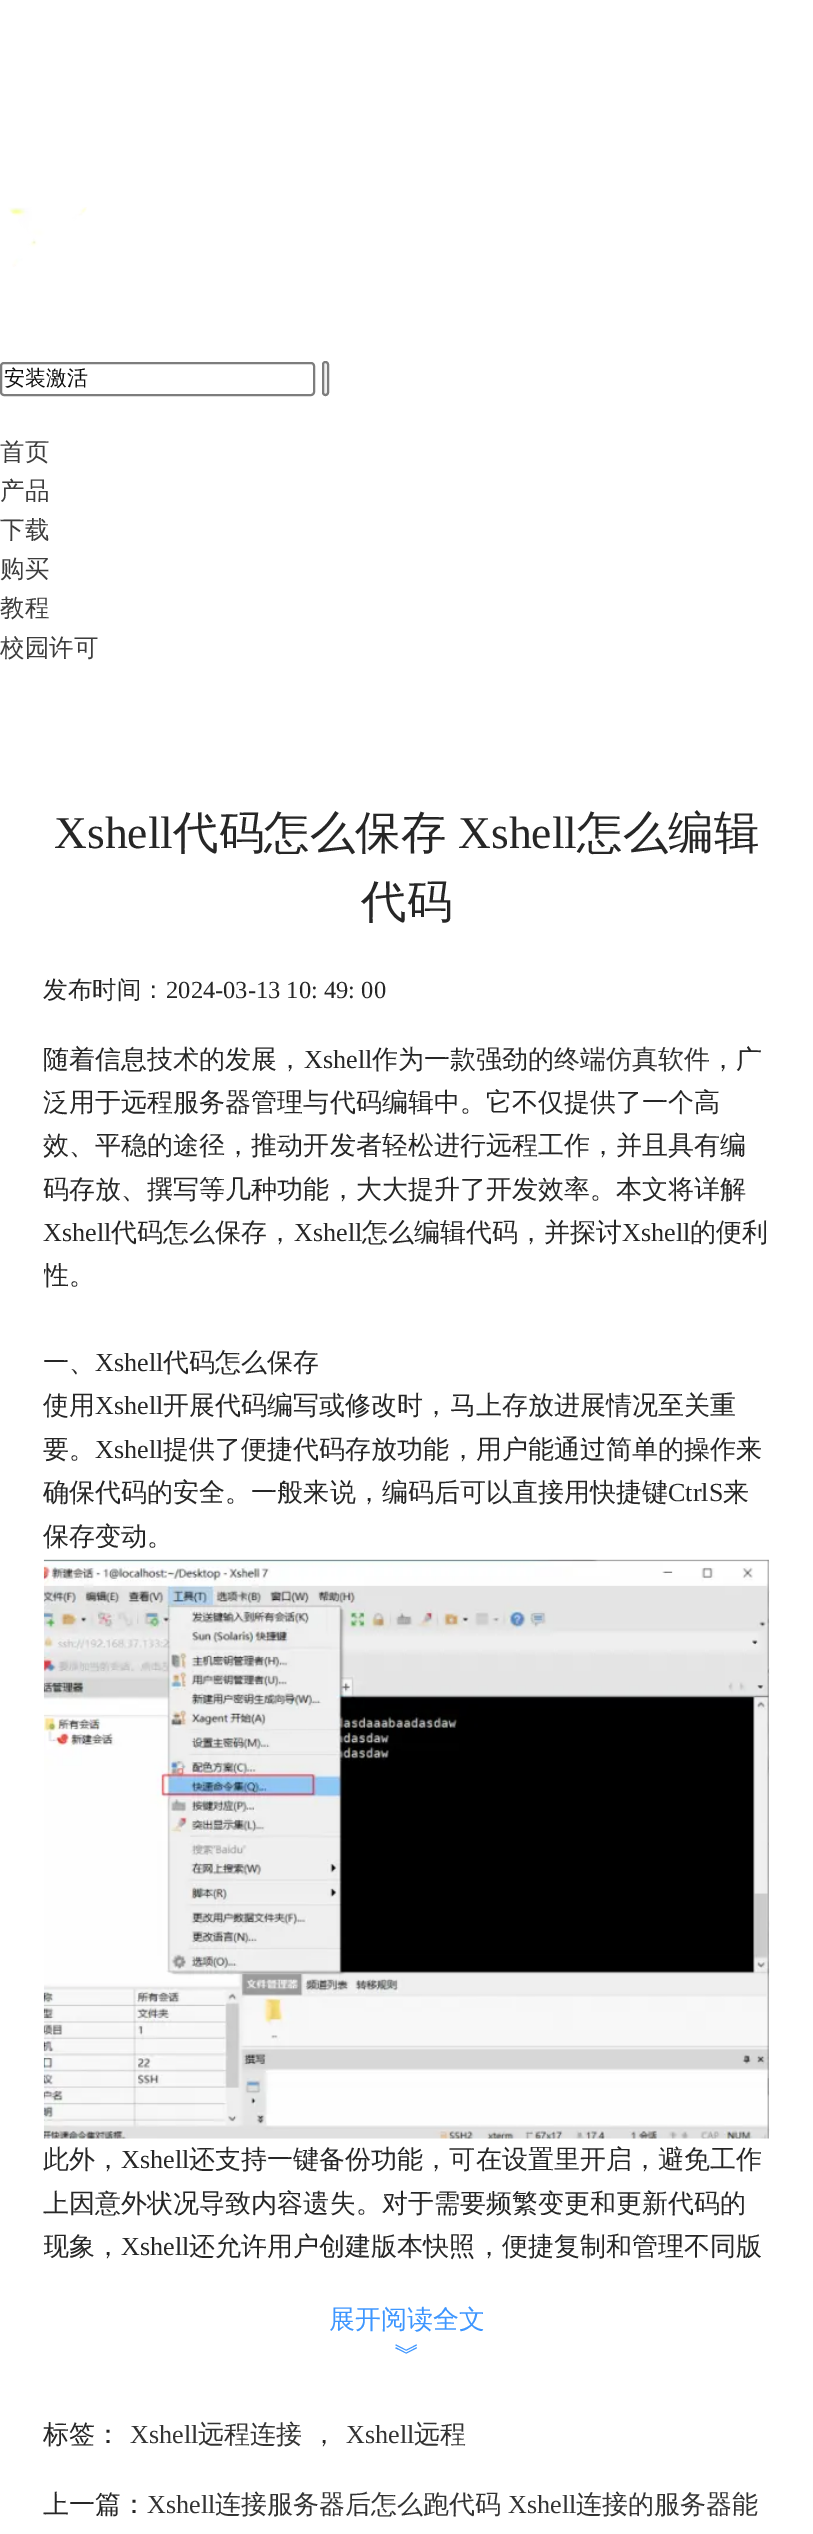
%!PS-Adobe-3.0
%%BoundingBox: 0 0 813 2534
%%LanguageLevel: 3
%%Pages: 1
%%EndComments
%%BeginProlog
/rrect { 5 dict begin { /r /h /w /y /x } { exch def } forall
  x r add y moveto x w add y 2 copy h add r arct x w add y h add x 1 index r arct
  x y h add x y r arct x y 2 copy exch w add exch r arct closepath end } def
/drawimage { 5 dict begin { /h /w /y /x /name } { exch def } forall
  gsave x y translate w h scale
  w h 8 [w 0 0 h 0 0] name (r) file false 3 colorimage grestore end } def
%%EndProlog
%%BeginSetup
<< /PageSize [813 2534] >> setpagedevice
%%EndSetup
%%Page: 1 1
0 2534 translate 1 -1 scale
4 setmiterlimit
1 setgray
0 0 813 2534 rectfill
(images/1.raw) 8 207 79 60 drawimage
0.49 setgray
2 setlinewidth
1 363 313 32 3 rrect stroke
0.941 setgray
323 362 5 33 2.5 rrect gsave fill grestore
0.49 setgray
stroke
(images/2.raw) 43 1559 727 580 drawimage
/WenQuanYiZenHei-Medium [21 0 0 -21 0 0] selectfont
0.051 setgray
4 385 moveto (安装激活) show
/WenQuanYiZenHei-Medium [24.5 0 0 -24.5 0 0] selectfont
0.239 setgray
0 460 moveto (首页) show
0 499 moveto (产品) show
0 538 moveto (下载) show
0 577 moveto (购买) show
0 616 moveto (教程) show
0 656 moveto (校园许可) show
/LiberationSerif-Regular [45.5 0 0 -45.5 0 0] selectfont
0.149 setgray
54 848 moveto (Xshell) show
/WenQuanYiZenHei-Medium [45.5 0 0 -45.5 0 0] selectfont
173 848 moveto (代码怎么保存) show
/LiberationSerif-Regular [45.5 0 0 -45.5 0 0] selectfont
458 848 moveto (Xshell) show
/WenQuanYiZenHei-Medium [45.5 0 0 -45.5 0 0] selectfont
577 848 moveto (怎么编辑) show
361 917 moveto (代码) show
/WenQuanYiZenHei-Medium [24.5 0 0 -24.5 0 0] selectfont
43 998 moveto (发布时间：) show
/LiberationSerif-Regular [24.5 0 0 -24.5 0 0] selectfont
166 998 moveto (2024-03-13 10: 49: 00) show
/WenQuanYiZenHei-Medium [26.05 0 0 -26.05 0 0] selectfont
43 1068 moveto (随着信息技术的发展，) show
/LiberationSerif-Regular [26.05 0 0 -26.05 0 0] selectfont
304 1068 moveto (Xshell) show
/WenQuanYiZenHei-Medium [26.05 0 0 -26.05 0 0] selectfont
372 1068 moveto (作为一款强劲的) show
0.2 setgray
554 1068 moveto (终端仿真软件) show
0.149 setgray
710 1068 moveto (，广) show
43 1111 moveto (泛用于远程服务器管理与代码编辑中。它不仅提供了一个高) show
43 1154 moveto (效、平稳的途径，推动开发者轻松进行远程工作，并且具有编) show
43 1198 moveto (码存放、撰写等几种功能，大大提升了开发效率。本文将详解) show
/LiberationSerif-Regular [26.05 0 0 -26.05 0 0] selectfont
43 1241 moveto (Xshell) show
/WenQuanYiZenHei-Medium [26.05 0 0 -26.05 0 0] selectfont
111 1241 moveto (代码怎么保存，) show
/LiberationSerif-Regular [26.05 0 0 -26.05 0 0] selectfont
294 1241 moveto (Xshell) show
/WenQuanYiZenHei-Medium [26.05 0 0 -26.05 0 0] selectfont
362 1241 moveto (怎么编辑代码，并探讨) show
/LiberationSerif-Regular [26.05 0 0 -26.05 0 0] selectfont
622 1241 moveto (Xshell) show
/WenQuanYiZenHei-Medium [26.05 0 0 -26.05 0 0] selectfont
690 1241 moveto (的便利) show
gsave
44 1038 726 1225 rectclip
43 1284 moveto (性。) show
grestore
43 1371 moveto (一、) show
/LiberationSerif-Regular [26.05 0 0 -26.05 0 0] selectfont
95 1371 moveto (Xshell) show
/WenQuanYiZenHei-Medium [26.05 0 0 -26.05 0 0] selectfont
163 1371 moveto (代码怎么保存) show
43 1414 moveto (使用) show
/LiberationSerif-Regular [26.05 0 0 -26.05 0 0] selectfont
95 1414 moveto (Xshell) show
/WenQuanYiZenHei-Medium [26.05 0 0 -26.05 0 0] selectfont
163 1414 moveto (开展代码编写或修改时，马上存放进展情况至关重) show
43 1458 moveto (要。) show
/LiberationSerif-Regular [26.05 0 0 -26.05 0 0] selectfont
95 1458 moveto (Xshell) show
/WenQuanYiZenHei-Medium [26.05 0 0 -26.05 0 0] selectfont
163 1458 moveto (提供了便捷代码存放功能，用户能通过简单的操作来) show
43 1501 moveto (确保代码的安全。一般来说，编码后可以直接用快捷键) show
/LiberationSerif-Regular [26.05 0 0 -26.05 0 0] selectfont
668 1501 moveto (CtrlS) show
/WenQuanYiZenHei-Medium [26.05 0 0 -26.05 0 0] selectfont
723 1501 moveto (来) show
43 1545 moveto (保存变动。) show
43 2168 moveto (此外，) show
/LiberationSerif-Regular [26.05 0 0 -26.05 0 0] selectfont
121 2168 moveto (Xshell) show
/WenQuanYiZenHei-Medium [26.05 0 0 -26.05 0 0] selectfont
189 2168 moveto (还支持一键备份功能，可在设置里开启，避免工作) show
43 2212 moveto (上因意外状况导致内容遗失。对于需要频繁变更和更新代码的) show
gsave
44 1038 726 1225 rectclip
43 2255 moveto (现象，) show
grestore
/LiberationSerif-Regular [26.05 0 0 -26.05 0 0] selectfont
121 2255 moveto (Xshell) show
/WenQuanYiZenHei-Medium [26.05 0 0 -26.05 0 0] selectfont
189 2255 moveto (还允许用户创建版本快照，便捷复制和管理不同版) show
0.239 0.588 1 setrgbcolor
329 2328 moveto (展开阅读全文) show
394 2362 moveto (︾) show
0.149 setgray
43 2443 moveto (标签：) show
/LiberationSerif-Regular [26.05 0 0 -26.05 0 0] selectfont
0.2 setgray
130 2443 moveto (Xshell) show
/WenQuanYiZenHei-Medium [26.05 0 0 -26.05 0 0] selectfont
198 2443 moveto (远程连接) show
0.149 setgray
311 2443 moveto (，) show
/LiberationSerif-Regular [26.05 0 0 -26.05 0 0] selectfont
0.2 setgray
346 2443 moveto (Xshell) show
/WenQuanYiZenHei-Medium [26.05 0 0 -26.05 0 0] selectfont
414 2443 moveto (远程) show
0.149 setgray
43 2513 moveto (上一篇：) show
/LiberationSerif-Regular [26.05 0 0 -26.05 0 0] selectfont
0.2 setgray
147 2513 moveto (Xshell) show
/WenQuanYiZenHei-Medium [26.05 0 0 -26.05 0 0] selectfont
215 2513 moveto (连接服务器后怎么跑代码) show
/LiberationSerif-Regular [26.05 0 0 -26.05 0 0] selectfont
508 2513 moveto (Xshell) show
/WenQuanYiZenHei-Medium [26.05 0 0 -26.05 0 0] selectfont
576 2513 moveto (连接的服务器能) show
showpage
%%EOF
